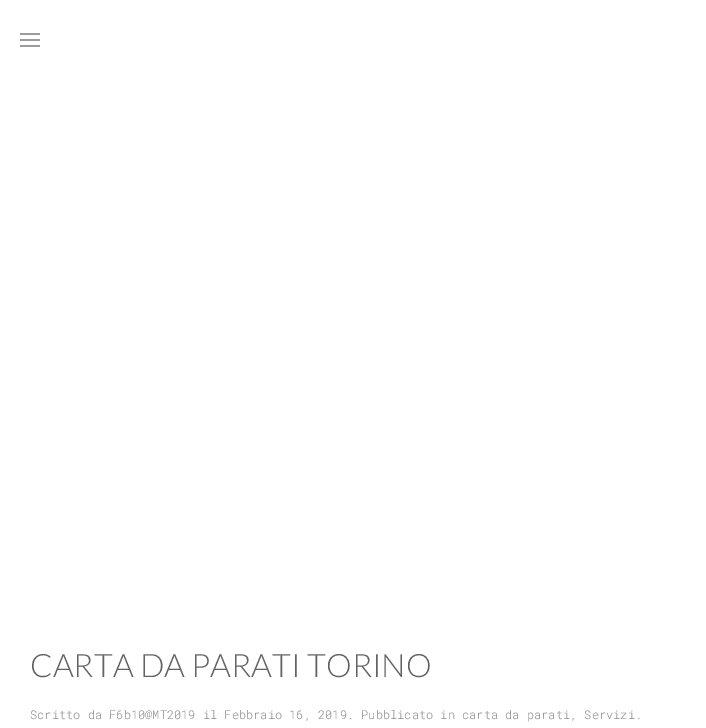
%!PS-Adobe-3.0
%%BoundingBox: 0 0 706 728
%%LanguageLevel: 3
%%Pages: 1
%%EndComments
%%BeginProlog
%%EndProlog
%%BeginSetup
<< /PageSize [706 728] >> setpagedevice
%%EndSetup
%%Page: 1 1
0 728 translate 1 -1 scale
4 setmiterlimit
1 setgray
0 0 706 728 rectfill
0.624 0.608 0.608 setrgbcolor
20 33 20 2 rectfill
20 39 20 2 rectfill
20 45 20 2 rectfill
/Lato-Light [32.25 0 0 -32.25 0 0] selectfont
0.384 setgray
30 677 moveto (CARTA DA PARATI TORINO) show
/RobotoMono-Light [12 0 0 -12 0 0] selectfont
0.545 0.525 0.525 setrgbcolor
30 719 moveto (Scritto da F6b10@MT2019 il Febbraio 16, 2019. Pubblicato in carta da parati, Servizi.) show
showpage
%%EOF
